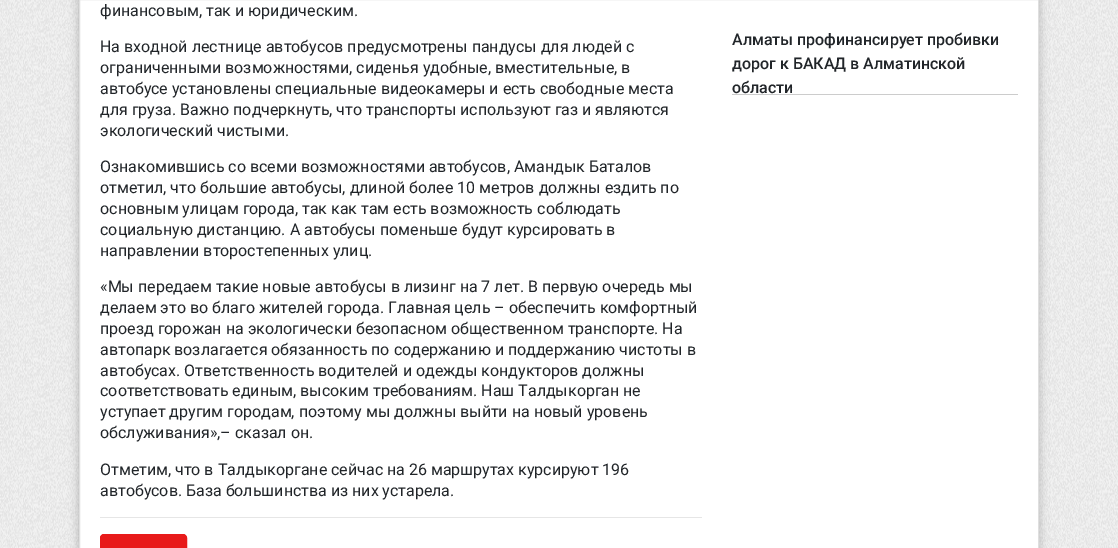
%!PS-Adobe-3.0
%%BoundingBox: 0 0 1118 548
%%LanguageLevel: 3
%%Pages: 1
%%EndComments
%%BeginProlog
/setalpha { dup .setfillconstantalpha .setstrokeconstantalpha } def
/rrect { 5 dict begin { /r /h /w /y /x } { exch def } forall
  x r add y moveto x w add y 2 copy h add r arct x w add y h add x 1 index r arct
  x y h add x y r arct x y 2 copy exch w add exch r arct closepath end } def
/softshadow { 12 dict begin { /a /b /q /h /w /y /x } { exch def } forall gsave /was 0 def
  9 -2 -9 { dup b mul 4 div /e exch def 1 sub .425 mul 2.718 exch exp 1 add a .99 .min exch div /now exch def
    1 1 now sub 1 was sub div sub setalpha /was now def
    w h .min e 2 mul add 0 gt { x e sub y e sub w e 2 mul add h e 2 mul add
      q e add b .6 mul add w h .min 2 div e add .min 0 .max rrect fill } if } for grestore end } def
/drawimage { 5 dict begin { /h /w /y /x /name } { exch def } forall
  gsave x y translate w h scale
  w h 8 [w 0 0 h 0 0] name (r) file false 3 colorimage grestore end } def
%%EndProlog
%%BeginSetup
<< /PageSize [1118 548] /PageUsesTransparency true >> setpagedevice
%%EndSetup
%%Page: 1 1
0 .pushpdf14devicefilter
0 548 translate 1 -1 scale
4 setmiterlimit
1 setgray
0 0 1118 548 rectfill
(images/1.raw) 0 0 1118 548 drawimage
0 setgray
79 -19 960 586 4 5 0.25 softshadow
1 setgray
newpath 79.5 -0.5 moveto 1038.5 -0.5 lineto 1038.5 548.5 lineto 79.5 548.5 lineto closepath gsave fill grestore
0.875 setgray
stroke
0.902 setgray
100 517 602 1 rectfill
0.91 0.102 0.102 setrgbcolor
100.5 534.5 86 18 3.5 rrect gsave fill grestore
stroke
0.8 setgray
732 94 286 1 rectfill
/Roboto-Regular [16 0 0 -16 0 0] selectfont
0.129 0.145 0.161 setrgbcolor
100 16 moveto (финансовым, так и юридическим.) show
100 52 moveto (На входной лестнице автобусов предусмотрены пандусы для людей с) show
100 73 moveto (ограниченными возможностями, сиденья удобные, вместительные, в) show
100 94 moveto (автобусе установлены специальные видеокамеры и есть свободные места) show
100 115 moveto (для груза. Важно подчеркнуть, что транспорты используют газ и являются) show
100 136 moveto (экологический чистыми.) show
100 172 moveto (Ознакомившись со всеми возможностями автобусов, Амандык Баталов) show
100 193 moveto (отметил, что большие автобусы, длиной более 10 метров должны ездить по) show
100 214 moveto (основным улицам города, так как там есть возможность соблюдать) show
100 235 moveto (социальную дистанцию. А автобусы поменьше будут курсировать в) show
100 256 moveto (направлении второстепенных улиц.) show
100 292 moveto («Мы передаем такие новые автобусы в лизинг на 7 лет. В первую очередь мы) show
100 313 moveto (делаем это во благо жителей города. Главная цель – обеспечить комфортный) show
100 334 moveto (проезд горожан на экологически безопасном общественном транспорте. На) show
100 355 moveto (автопарк возлагается обязанность по содержанию и поддержанию чистоты в) show
100 376 moveto (автобусах. Ответственность водителей и одежды кондукторов должны) show
100 396 moveto (соответствовать единым, высоким требованиям. Наш Талдыкорган не) show
100 417 moveto (уступает другим городам, поэтому мы должны выйти на новый уровень) show
100 438 moveto (обслуживания»,– сказал он.) show
100 475 moveto (Отметим, что в Талдыкоргане сейчас на 26 маршрутах курсируют 196) show
100 496 moveto (автобусов. База большинства из них устарела.) show
/Roboto-Medium [16 0 0 -16 0 0] selectfont
732 45 moveto (Алматы профинансирует пробивки) show
732 69 moveto (дорог к БАКАД в Алматинской) show
732 93 moveto (области) show
.poppdf14devicefilter showpage
%%EOF
